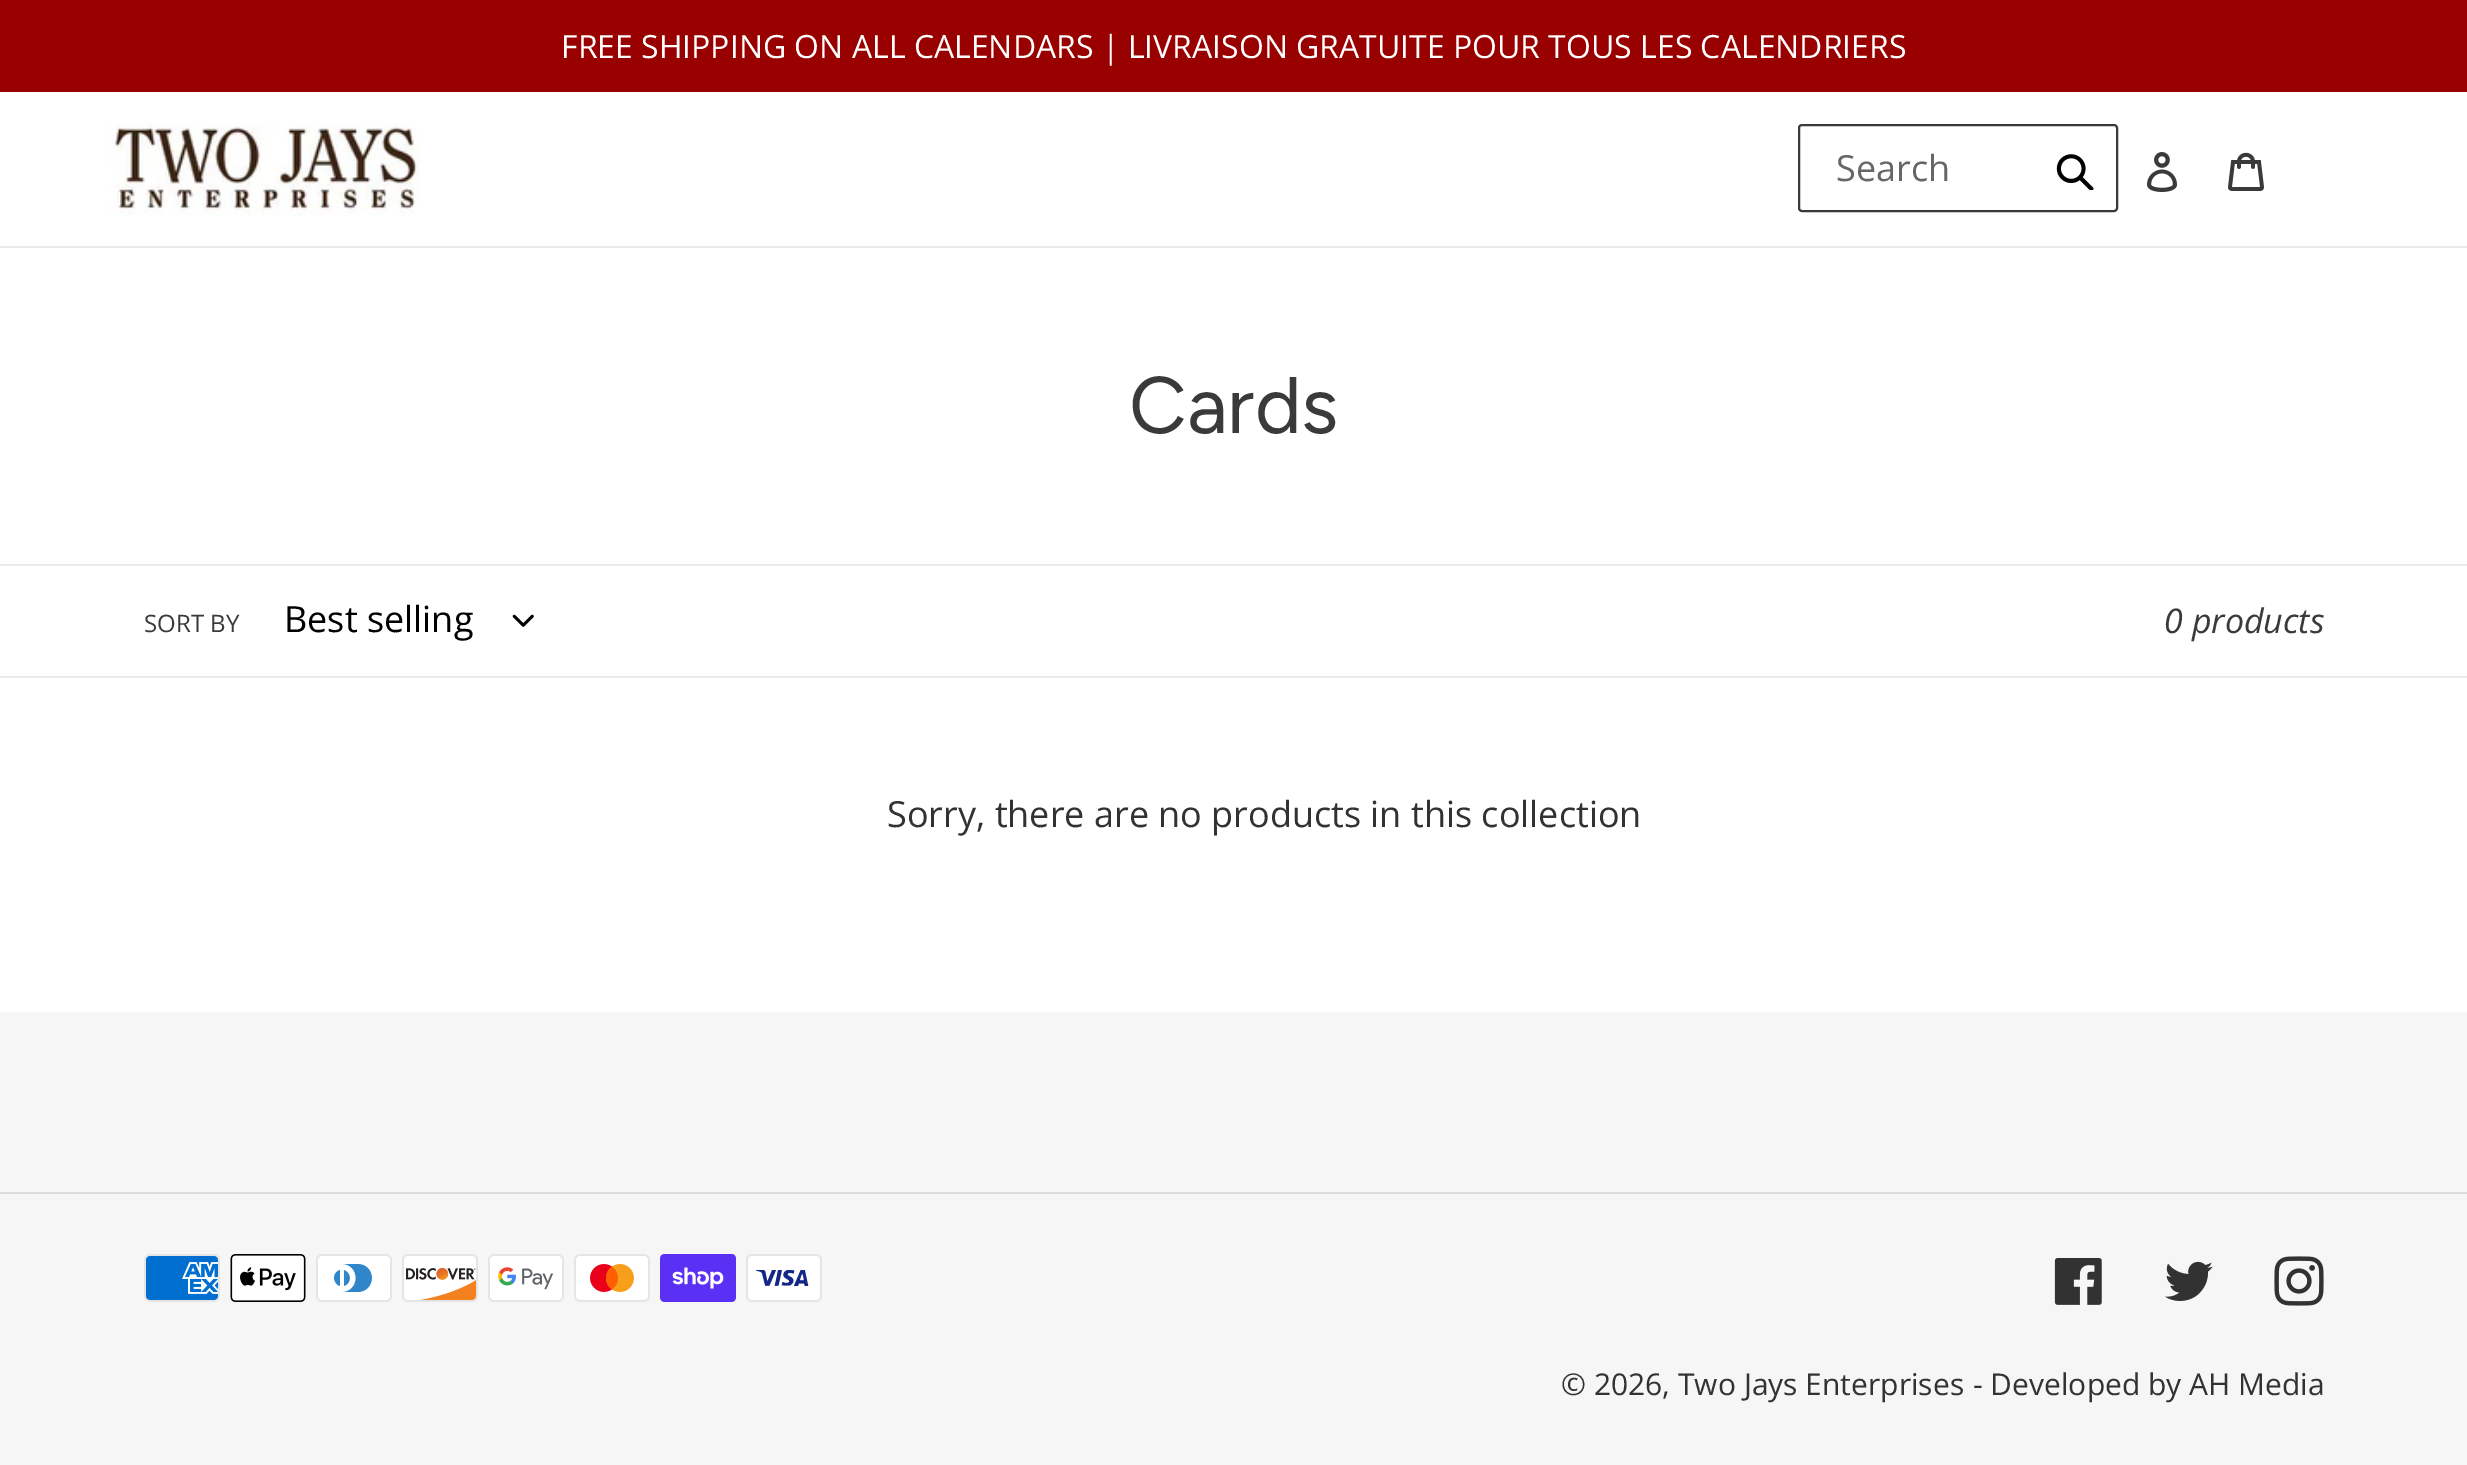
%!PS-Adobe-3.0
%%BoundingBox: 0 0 2467 1465
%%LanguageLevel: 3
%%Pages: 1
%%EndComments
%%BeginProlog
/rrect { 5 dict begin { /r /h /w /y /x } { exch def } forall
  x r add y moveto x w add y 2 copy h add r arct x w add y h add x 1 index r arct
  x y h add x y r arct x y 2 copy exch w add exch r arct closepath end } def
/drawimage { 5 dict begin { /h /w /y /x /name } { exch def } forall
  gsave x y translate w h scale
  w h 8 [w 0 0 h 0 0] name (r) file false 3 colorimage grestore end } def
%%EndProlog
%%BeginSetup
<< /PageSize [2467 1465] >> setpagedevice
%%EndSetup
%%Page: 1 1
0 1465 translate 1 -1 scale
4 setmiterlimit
1 setgray
0 0 2467 1465 rectfill
0.6 0 0 setrgbcolor
0 0 2467 92 rectfill
0.922 setgray
0 246 2467 2 rectfill
(images/1.raw) 110 122 310 94 drawimage
0.227 setgray
2 setlinewidth
1799 125 318 86 3 rrect stroke
(images/2.raw) 2056 154 38 36 drawimage
(images/3.raw) 2147 152 31 40 drawimage
(images/4.raw) 2228 152 36 39 drawimage
0.922 setgray
0 564 2467 2 rectfill
0 676 2467 2 rectfill
(images/5.raw) 512 614 22 13 drawimage
0.965 setgray
0 1012 2467 453 rectfill
0.867 setgray
0 1192 2467 2 rectfill
(images/6.raw) 144 1254 76 48 drawimage
(images/7.raw) 230 1254 76 48 drawimage
(images/8.raw) 316 1254 76 48 drawimage
(images/9.raw) 402 1254 76 48 drawimage
(images/10.raw) 488 1254 76 48 drawimage
(images/11.raw) 574 1254 76 48 drawimage
(images/12.raw) 660 1254 76 48 drawimage
(images/13.raw) 746 1254 76 48 drawimage
(images/14.raw) 2054 1258 48 47 drawimage
(images/15.raw) 2165 1261 48 40 drawimage
(images/16.raw) 2274 1256 50 50 drawimage
/OpenSans-Regular [32 0 0 -32 0 0] selectfont
1 setgray
561 58 moveto (FREE SHIPPING ON ALL CALENDARS | LIVRAISON GRATUITE POUR TOUS LES CALENDRIERS) show
/OpenSans-Regular [36 0 0 -36 0 0] selectfont
0.4 setgray
1836 181 moveto (Search) show
/Figtree-Regular [80 0 0 -80 0 0] selectfont
0.227 setgray
1129 433 moveto (Cards) show
/OpenSans-Regular [24 0 0 -24 0 0] selectfont
144 632 moveto (SORT BY) show
/OpenSans-Regular [36 0 0 -36 0 0] selectfont
0 setgray
284 632 moveto (Best selling) show
/OpenSans-Italic [34 0 0 -34 0 0] selectfont
0.227 setgray
2164 633 moveto (0 products) show
/OpenSans-Regular [36 0 0 -36 0 0] selectfont
0.2 0.196 0.196 setrgbcolor
887 827 moveto (Sorry, there are no products in this collection) show
/OpenSans-Regular [30 0 0 -30 0 0] selectfont
1561 1395 moveto (© 2026, Two Jays Enterprises) show
1973 1395 moveto (- Developed by AH Media) show
showpage
%%EOF
